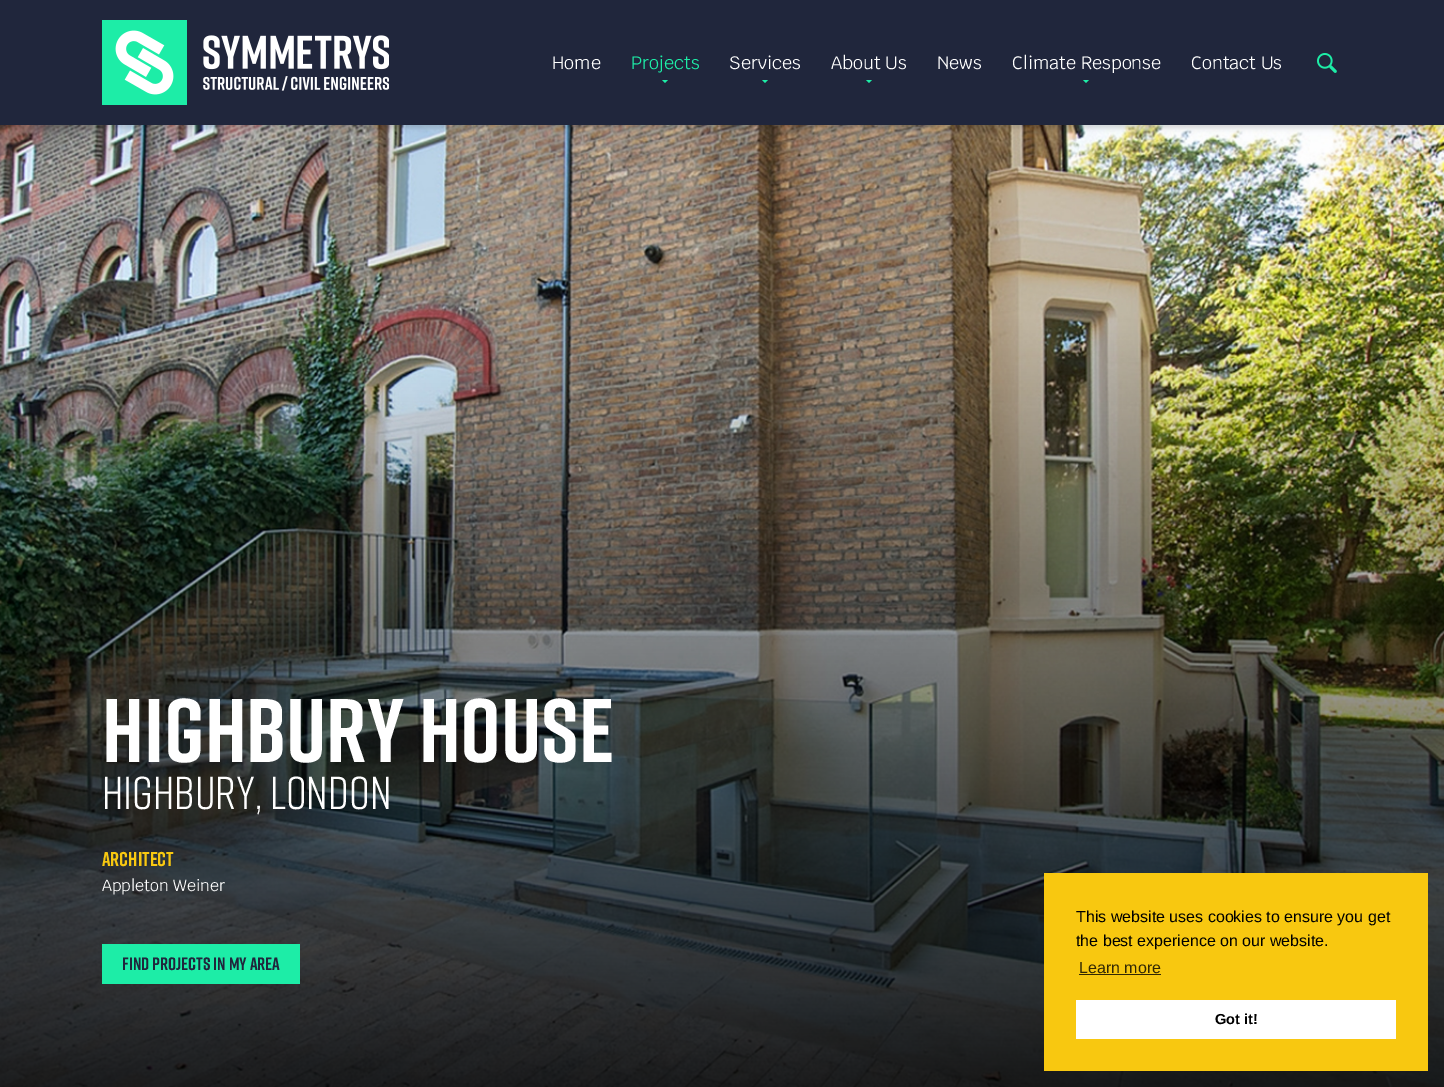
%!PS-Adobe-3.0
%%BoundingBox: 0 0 1444 1087
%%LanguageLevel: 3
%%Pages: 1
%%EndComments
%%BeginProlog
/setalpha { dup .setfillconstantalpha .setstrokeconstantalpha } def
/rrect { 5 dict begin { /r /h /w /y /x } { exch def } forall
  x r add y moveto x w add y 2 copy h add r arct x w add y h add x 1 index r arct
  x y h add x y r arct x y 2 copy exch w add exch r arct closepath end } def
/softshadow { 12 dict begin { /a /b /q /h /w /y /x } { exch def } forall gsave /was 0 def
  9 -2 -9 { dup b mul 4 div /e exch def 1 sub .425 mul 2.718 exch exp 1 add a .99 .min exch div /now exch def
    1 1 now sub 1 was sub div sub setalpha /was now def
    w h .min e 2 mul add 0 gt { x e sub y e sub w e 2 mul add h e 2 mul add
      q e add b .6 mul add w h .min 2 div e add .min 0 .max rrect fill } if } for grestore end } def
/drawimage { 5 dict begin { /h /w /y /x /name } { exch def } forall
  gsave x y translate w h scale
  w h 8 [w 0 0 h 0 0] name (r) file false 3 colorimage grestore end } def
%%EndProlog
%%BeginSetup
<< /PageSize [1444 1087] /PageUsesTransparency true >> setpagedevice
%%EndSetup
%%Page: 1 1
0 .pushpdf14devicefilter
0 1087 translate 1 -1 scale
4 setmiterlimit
1 setgray
0 0 1444 1087 rectfill
(images/3.raw) 0 125 1444 962 drawimage
0 setgray
0 3 1444 125 0 2.5 0.15 softshadow
0.125 0.149 0.235 setrgbcolor
0 0 1444 125 rectfill
(images/1.raw) 102 20 287 85 drawimage
0.114 0.929 0.655 setrgbcolor
newpath 662 80 moveto 668 80 lineto 665 83 lineto closepath fill
newpath 762 80 moveto 768 80 lineto 765 83 lineto closepath fill
newpath 866 80 moveto 872 80 lineto 869 83 lineto closepath fill
newpath 1083 80 moveto 1089 80 lineto 1086 83 lineto closepath fill
(images/2.raw) 1317 53 20 20 drawimage
102 944 198 40 rectfill
0.973 0.784 0.063 setrgbcolor
1044 873 384 198 rectfill
0.196 0.157 0.012 setrgbcolor
1079 974 82 1 rectfill
1 setgray
1076 1000 320 39 rectfill
/Krub-Regular [18 0 0 -18 0 0] selectfont
552 69 moveto (Home) show
0.114 0.929 0.655 setrgbcolor
631 69 moveto (Projects) show
1 setgray
729 69 moveto (Services) show
831 69 moveto (About Us) show
937 69 moveto (News) show
1012 69 moveto (Climate Response) show
1191 69 moveto (Contact Us) show
/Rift-Bold [90 0 0 -90 0 0] selectfont
102 762 moveto (Highbury House) show
/Rift-Regular [46 0 0 -46 0 0] selectfont
102 809 moveto (Highbury, London) show
/Rift-Bold [20 0 0 -20 0 0] selectfont
0.973 0.784 0.063 setrgbcolor
102 866 moveto (Architect) show
/Krub-Regular [16 0 0 -16 0 0] selectfont
1 setgray
102 891 moveto (Appleton Weiner) show
/Rift-Bold [18 0 0 -18 0 0] selectfont
0.125 0.149 0.235 setrgbcolor
122 970 moveto (Find Projects In My Area) show
/LiberationSans-Regular [16 0 0 -16 0 0] selectfont
0 setgray
1076 922 moveto (This website uses cookies to ensure you get) show
1076 946 moveto (the best experience on our website.) show
0.196 0.157 0.012 setrgbcolor
1079 973 moveto (Learn more) show
/LiberationSans-Bold [14.5 0 0 -14.5 0 0] selectfont
0 setgray
1215 1024 moveto (Got it!) show
.poppdf14devicefilter showpage
%%EOF
